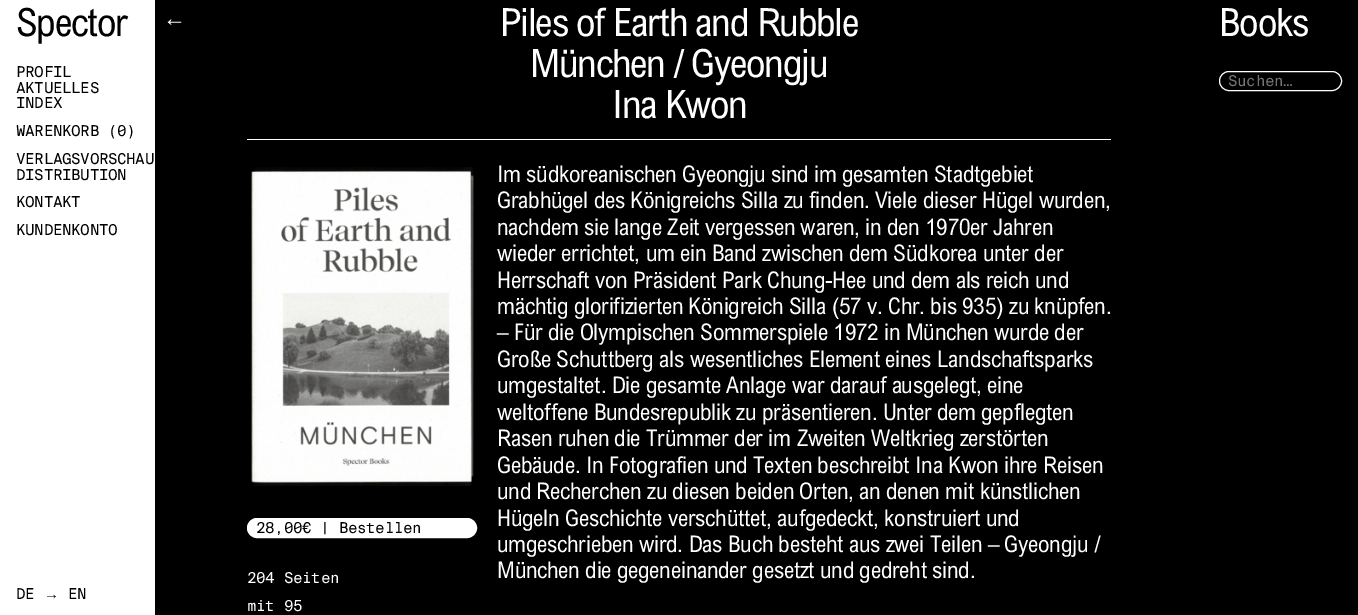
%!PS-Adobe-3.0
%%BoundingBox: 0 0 1358 615
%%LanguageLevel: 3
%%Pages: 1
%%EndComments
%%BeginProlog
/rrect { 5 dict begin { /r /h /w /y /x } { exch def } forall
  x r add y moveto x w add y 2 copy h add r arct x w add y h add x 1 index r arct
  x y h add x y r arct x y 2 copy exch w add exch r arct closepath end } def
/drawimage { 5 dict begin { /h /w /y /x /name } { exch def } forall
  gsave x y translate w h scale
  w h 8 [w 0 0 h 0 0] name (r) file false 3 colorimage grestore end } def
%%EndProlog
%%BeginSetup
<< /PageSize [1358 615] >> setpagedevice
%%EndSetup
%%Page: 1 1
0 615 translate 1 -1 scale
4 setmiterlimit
1 setgray
0 0 1358 615 rectfill
0 setgray
155 0 1203 615 rectfill
1 setgray
247 139 864 1 rectfill
(images/1.raw) 251 167 223 319 drawimage
247.5 518.5 229 19 9.5 rrect gsave fill grestore
stroke
1219.5 71.5 122 19 9.5 rrect stroke
/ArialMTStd-Medium [39 0 0 -39 0 0] selectfont
0 setgray
16 36 moveto -1.2 0 (Spector) ashow
/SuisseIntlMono-Regular [15 0 0 -15 0 0] selectfont
16 77 moveto -0.5 0 (PROFIL) ashow
16 93 moveto -0.5 0 (AKTUELLES) ashow
16 108 moveto -0.5 0 (INDEX) ashow
16 136 moveto -0.5 0 (WARENKORB \(0\)) ashow
16 164 moveto -0.5 0 (VERLAGSVORSCHAU) ashow
16 180 moveto -0.5 0 (DISTRIBUTION) ashow
16 207 moveto -0.5 0 (KONTAKT) ashow
16 235 moveto -0.5 0 (KUNDENKONTO) ashow
16 599 moveto -0.5 0 (DE) ashow
/LiberationSans-Regular [15 0 0 -15 0 0] selectfont
44 599 moveto -0.5 0 (→) ashow
/SuisseIntlMono-Regular [15 0 0 -15 0 0] selectfont
68 599 moveto -0.5 0 (EN) ashow
/LiberationSans-Regular [23 0 0 -23 0 0] selectfont
1 setgray
163 26 moveto -0.23 0 (←) ashow
/ArialMTStd-Medium [39 0 0 -39 0 0] selectfont
500 36 moveto -1.2 0 (Piles of Earth and Rubble) ashow
530 77 moveto -1.2 0 (München / Gyeongju) ashow
612 118 moveto -1.2 0 (Ina Kwon) ashow
/SuisseIntlMono-Regular [15 0 0 -15 0 0] selectfont
0 setgray
256 533 moveto -0.5 0 (28,00€ | Bestellen) ashow
1 setgray
247 583 moveto -0.5 0 (204 Seiten) ashow
247 611 moveto -0.5 0 (mit 95) ashow
/ArialMTStd-Medium [23 0 0 -23 0 0] selectfont
497 182 moveto -0.23 0 (Im südkoreanischen Gyeongju sind im gesamten Stadtgebiet) ashow
497 208 moveto -0.23 0 (Grabhügel des Königreichs Silla zu finden. Viele dieser Hügel wurden,) ashow
497 235 moveto -0.23 0 (nachdem sie lange Zeit vergessen waren, in den 1970er Jahren) ashow
497 261 moveto -0.23 0 (wieder errichtet, um ein Band zwischen dem Südkorea unter der) ashow
497 288 moveto -0.23 0 (Herrschaft von Präsident Park Chung-Hee und dem als reich und) ashow
497 314 moveto -0.23 0 (mächtig glorifizierten Königreich Silla \(57 v. Chr. bis 935\) zu knüpfen.) ashow
497 340 moveto -0.23 0 (– Für die Olympischen Sommerspiele 1972 in München wurde der) ashow
497 367 moveto -0.23 0 (Große Schuttberg als wesentliches Element eines Landschaftsparks) ashow
497 393 moveto -0.23 0 (umgestaltet. Die gesamte Anlage war darauf ausgelegt, eine) ashow
497 420 moveto -0.23 0 (weltoffene Bundesrepublik zu präsentieren. Unter dem gepflegten) ashow
497 446 moveto -0.23 0 (Rasen ruhen die Trümmer der im Zweiten Weltkrieg zerstörten) ashow
497 473 moveto -0.23 0 (Gebäude. In Fotografien und Texten beschreibt Ina Kwon ihre Reisen) ashow
497 499 moveto -0.23 0 (und Recherchen zu diesen beiden Orten, an denen mit künstlichen) ashow
497 526 moveto -0.23 0 (Hügeln Geschichte verschüttet, aufgedeckt, konstruiert und) ashow
497 552 moveto -0.23 0 (umgeschrieben wird. Das Buch besteht aus zwei Teilen – Gyeongju /) ashow
497 578 moveto -0.23 0 (München die gegeneinander gesetzt und gedreht sind.) ashow
/ArialMTStd-Medium [39 0 0 -39 0 0] selectfont
1219 36 moveto -1.2 0 (Books) ashow
/SuisseIntlMono-Regular [15 0 0 -15 0 0] selectfont
0.459 setgray
1228 86 moveto -0.5 0 (Suchen…) ashow
showpage
%%EOF
